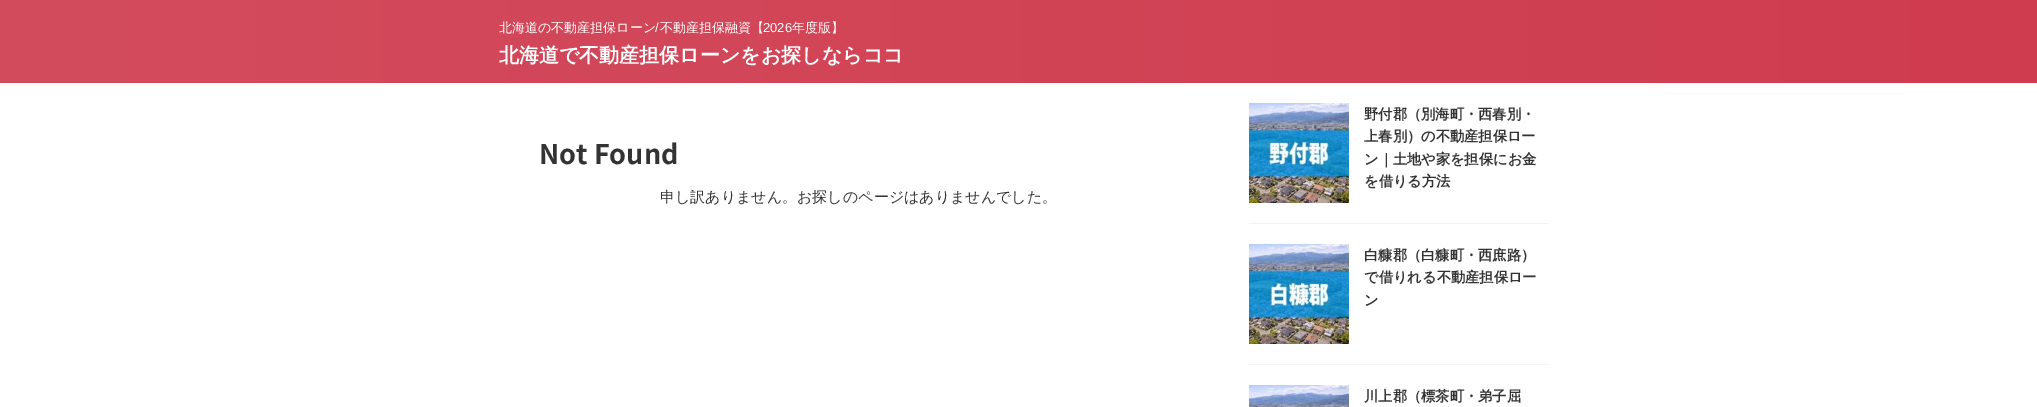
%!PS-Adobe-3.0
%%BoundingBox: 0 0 2037 407
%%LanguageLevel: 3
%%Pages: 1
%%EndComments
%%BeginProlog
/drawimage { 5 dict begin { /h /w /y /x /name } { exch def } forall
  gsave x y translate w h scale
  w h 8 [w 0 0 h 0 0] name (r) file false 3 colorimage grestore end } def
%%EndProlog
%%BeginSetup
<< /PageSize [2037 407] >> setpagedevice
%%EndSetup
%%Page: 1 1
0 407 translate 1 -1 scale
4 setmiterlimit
1 setgray
0 0 2037 407 rectfill
gsave newpath 0 0 moveto 2037 0 lineto 2037 83 lineto 0 83 lineto closepath clip newpath
<< /ShadingType 2 /ColorSpace /DeviceRGB /Coords [2037 42 0 41] /Extend [true true] /Function << /FunctionType 2 /Domain [0 1] /C0 [0.812 0.235 0.31] /C1 [0.827 0.298 0.365] /N 1 >> >> shfill grestore
0.953 setgray
1249 223 300 1 rectfill
(images/1.raw) 1249 103 100 100 drawimage
1249 364 300 1 rectfill
(images/2.raw) 1249 244 100 100 drawimage
(images/3.raw) 1249 385 100 22 drawimage
/WenQuanYiZenHei-Medium [13 0 0 -13 0 0] selectfont
1 setgray
499 32 moveto (北海道の不動産担保ローン 不動産担保融資【) show
792 32 moveto (年度版】) show
/LiberationSans-Regular [13 0 0 -13 0 0] selectfont
655 32 moveto (/) show
763 32 moveto (2026) show
/WenQuanYiZenHei-Bold [20 0 0 -20 0 0] selectfont
499 62 moveto (北海道で不動産担保ローンをお探しならココ) show
/NotoSansJP-Bold [27 0 0 -27 0 0] selectfont
0.2 setgray
539 164 moveto (Not Found) show
/WenQuanYiZenHei-Medium [15 0 0 -15 0 0] selectfont
660 202 moveto (申し訳ありません。お探しのページはありませんでした。) show
/WenQuanYiZenHei-Bold [14.25 0 0 -14.25 0 0] selectfont
1364 119 moveto (野付郡（別海町・西春別・) show
1364 141 moveto (上春別）の不動産担保ロー) show
1364 164 moveto (ン｜土地や家を担保にお金) show
1364 186 moveto (を借りる方法) show
1364 260 moveto (白糠郡（白糠町・西庶路）) show
1364 282 moveto (で借りれる不動産担保ロー) show
1364 305 moveto (ン) show
1364 401 moveto (川上郡（標茶町・弟子屈) show
showpage
%%EOF
